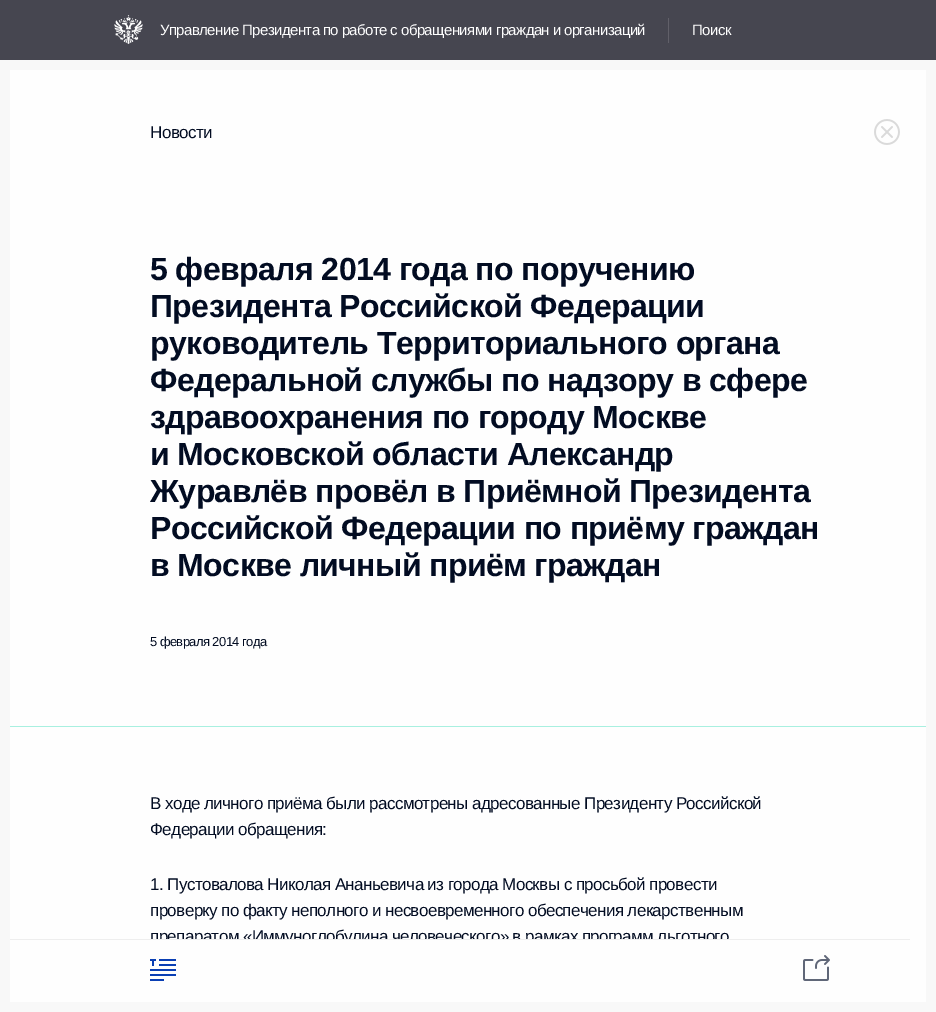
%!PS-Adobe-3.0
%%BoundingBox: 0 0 936 1012
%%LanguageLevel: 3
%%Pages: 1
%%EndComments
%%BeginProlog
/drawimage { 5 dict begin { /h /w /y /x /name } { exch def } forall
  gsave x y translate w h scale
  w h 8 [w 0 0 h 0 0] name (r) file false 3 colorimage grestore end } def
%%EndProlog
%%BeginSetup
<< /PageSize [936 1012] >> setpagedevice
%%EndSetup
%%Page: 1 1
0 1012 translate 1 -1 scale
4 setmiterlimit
0.973 setgray
0 0 936 1012 rectfill
0.275 0.275 0.314 setrgbcolor
0 0 936 60 rectfill
(images/1.raw) 114 15 29 29 drawimage
0.38 0.376 0.412 setrgbcolor
668 18 1 25 rectfill
0.996 setgray
10 70 916 932 rectfill
0.659 0.941 0.878 setrgbcolor
10 726 916 1 rectfill
(images/2.raw) 874 119 26 26 drawimage
(images/3.raw) 150 959 26 22 drawimage
(images/4.raw) 803 955 27 26 drawimage
/LiberationSans-Regular [15 0 0 -15 0 0] selectfont
0.996 setgray
160 35 moveto -0.6 0 (Управление Президента по работе с обращениями граждан и организаций) ashow
692 35 moveto -0.6 0 (Поиск) ashow
/LiberationSans-Regular [17 0 0 -17 0 0] selectfont
0.008 0.047 0.133 setrgbcolor
150 138 moveto -0.6 0 (Новости) ashow
/LiberationSans-Bold [32 0 0 -32 0 0] selectfont
150 280 moveto -0.6 0 (5 февраля 2014 года по поручению) ashow
150 317 moveto -0.6 0 (Президента Российской Федерации) ashow
150 354 moveto -0.6 0 (руководитель Территориального органа) ashow
150 391 moveto -0.6 0 (Федеральной службы по надзору в сфере) ashow
150 428 moveto -0.6 0 (здравоохранения по городу Москве) ashow
150 465 moveto -0.6 0 (и Московской области Александр) ashow
150 502 moveto -0.6 0 (Журавлёв провёл в Приёмной Президента) ashow
150 539 moveto -0.6 0 (Российской Федерации по приёму граждан) ashow
150 576 moveto -0.6 0 (в Москве личный приём граждан) ashow
/LiberationSans-Regular [13 0 0 -13 0 0] selectfont
150 646 moveto -0.6 0 (5 февраля 2014 года) ashow
/LiberationSans-Regular [17 0 0 -17 0 0] selectfont
150 809 moveto -0.6 0 (В ходе личного приёма были рассмотрены адресованные Президенту Российской) ashow
150 835 moveto -0.6 0 (Федерации обращения:) ashow
150 890 moveto -0.6 0 (1. Пустовалова Николая Ананьевича из города Москвы с просьбой провести) ashow
150 916 moveto -0.6 0 (проверку по факту неполного и несвоевременного обеспечения лекарственным) ashow
150 942 moveto -0.6 0 (препаратом «Иммуноглобулина человеческого» в рамках программ льготного) ashow
0.996 setgray
151 940 578 6 rectfill
0.933 setgray
10 939 900 1 rectfill
showpage
%%EOF
